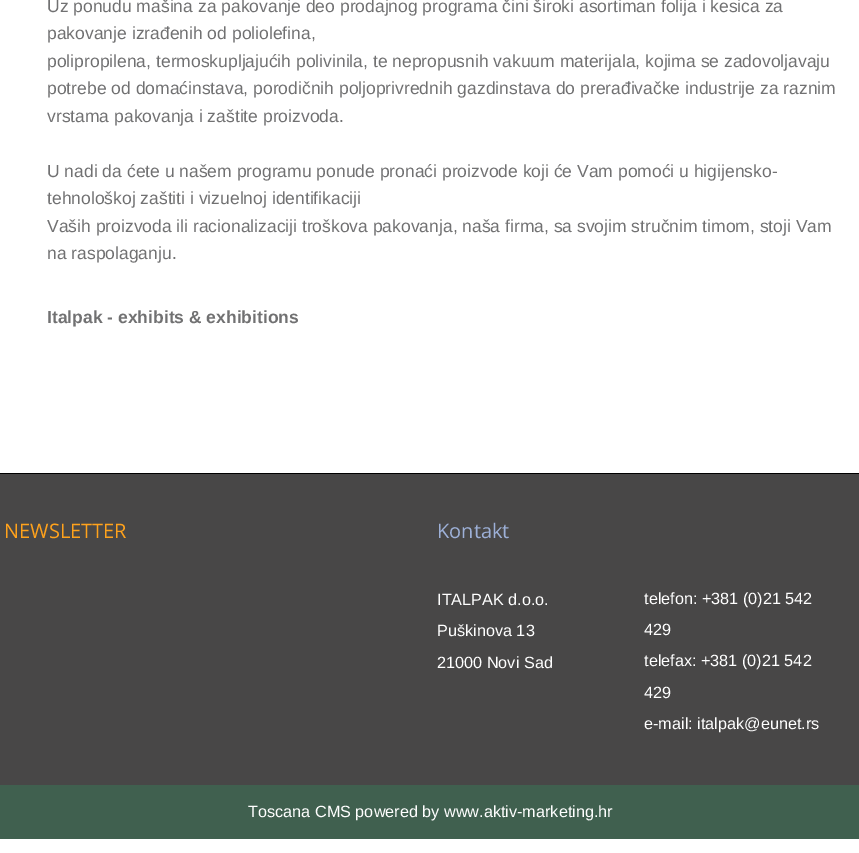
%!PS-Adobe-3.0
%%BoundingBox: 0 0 859 853
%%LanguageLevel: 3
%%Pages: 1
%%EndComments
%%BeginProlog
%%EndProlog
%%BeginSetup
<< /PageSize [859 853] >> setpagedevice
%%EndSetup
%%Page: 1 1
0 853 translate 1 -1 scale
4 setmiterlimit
1 setgray
0 0 859 853 rectfill
0.282 0.278 0.278 setrgbcolor
0 474 859 311 rectfill
0 setgray
0 473 859 1 rectfill
0.251 0.376 0.31 setrgbcolor
0 785 859 54 rectfill
/LiberationSans-Regular [17.5 0 0 -17.5 0 0] selectfont
0.443 0.443 0.447 setrgbcolor
47 12 moveto (Uz ponudu mašina za pakovanje deo prodajnog programa čini široki asortiman folija i kesica za) show
47 39 moveto (pakovanje izrađenih od poliolefina,) show
47 67 moveto (polipropilena, termoskupljajućih polivinila, te nepropusnih vakuum materijala, kojima se zadovoljavaju) show
47 94 moveto (potrebe od domaćinstava, porodičnih poljoprivrednih gazdinstava do prerađivačke industrije za raznim) show
47 122 moveto (vrstama pakovanja i zaštite proizvoda.) show
47 177 moveto (U nadi da ćete u našem programu ponude pronaći proizvode koji će Vam pomoći u higijensko-) show
47 204 moveto (tehnološkoj zaštiti i vizuelnoj identifikaciji) show
47 232 moveto (Vaših proizvoda ili racionalizaciji troškova pakovanja, naša firma, sa svojim stručnim timom, stoji Vam) show
47 259 moveto (na raspolaganju.) show
/LiberationSans-Bold [17.5 0 0 -17.5 0 0] selectfont
47 323 moveto (Italpak - exhibits & exhibitions) show
/OpenSans-Regular [20 0 0 -20 0 0] selectfont
1 0.635 0.11 setrgbcolor
4 538 moveto (NEWSLETTER) show
0.616 0.69 0.843 setrgbcolor
437 538 moveto (Kontakt) show
/LiberationSans-Regular [16.25 0 0 -16.25 0 0] selectfont
1 setgray
437 605 moveto (ITALPAK d.o.o.) show
437 636 moveto (Puškinova 13) show
437 668 moveto (21000 Novi Sad) show
644 604 moveto (telefon: +381 \(0\)21 542) show
644 635 moveto (429) show
644 666 moveto (telefax: +381 \(0\)21 542) show
644 698 moveto (429) show
644 729 moveto (e-mail: italpak@eunet.rs) show
248 817 moveto (Toscana CMS powered by www.aktiv-marketing.hr) show
showpage
%%EOF
